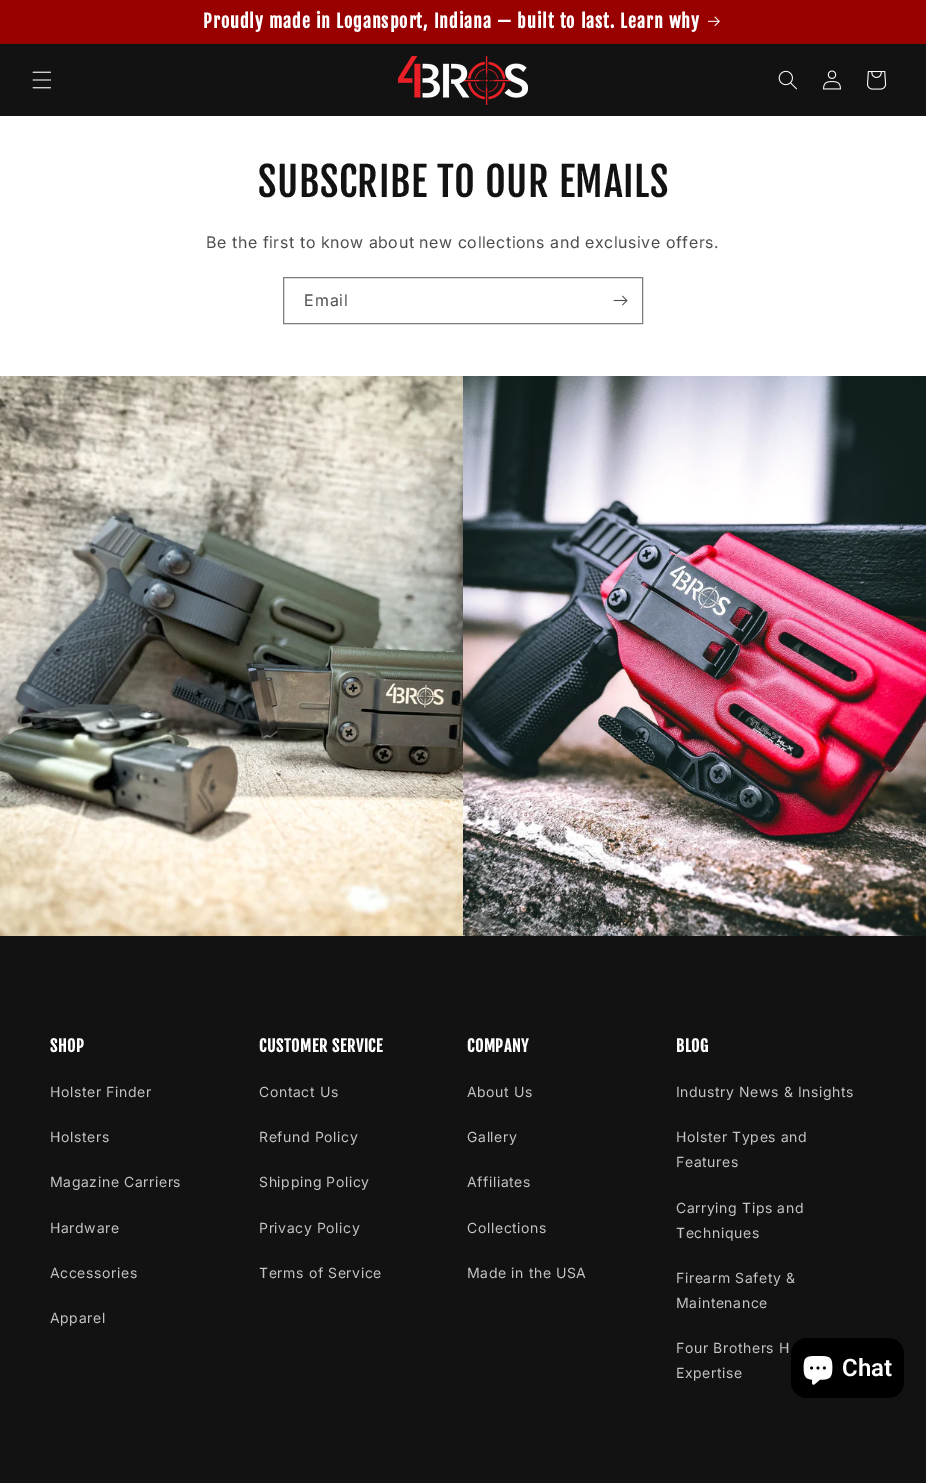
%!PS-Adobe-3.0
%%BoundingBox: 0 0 926 1483
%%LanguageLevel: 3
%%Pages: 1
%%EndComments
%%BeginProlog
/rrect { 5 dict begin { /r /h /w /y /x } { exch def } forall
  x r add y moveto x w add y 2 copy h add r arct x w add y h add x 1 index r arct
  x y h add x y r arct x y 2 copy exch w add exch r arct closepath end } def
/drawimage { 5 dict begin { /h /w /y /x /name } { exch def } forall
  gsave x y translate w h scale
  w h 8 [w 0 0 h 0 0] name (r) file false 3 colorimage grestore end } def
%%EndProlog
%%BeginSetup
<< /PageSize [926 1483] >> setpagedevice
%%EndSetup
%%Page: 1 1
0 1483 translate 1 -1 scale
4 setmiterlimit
1 setgray
0 0 926 1483 rectfill
0.6 0 0 setrgbcolor
0 0 926 43 rectfill
0.553 0 0 setrgbcolor
0 43 926 1 rectfill
(images/1.raw) 708 16 12 10 drawimage
0.071 setgray
0 44 926 72 rectfill
(images/2.raw) 32 71 20 18 drawimage
(images/3.raw) 398 56 130 49 drawimage
(images/4.raw) 778 70 19 20 drawimage
(images/5.raw) 823 70 18 20 drawimage
(images/6.raw) 867 71 20 19 drawimage
0.49 setgray
283.5 277.5 359 46 rectstroke
(images/7.raw) 613 295 15 11 drawimage
(images/8.raw) 0 376 463 560 drawimage
(images/9.raw) 463 376 463 560 drawimage
0.071 setgray
0 936 926 547 rectfill
0 setgray
791 1338 113 60 16 rrect fill
(images/10.raw) 803 1356 30 29 drawimage
/FjallaOne-Bold [18 0 0 -18 0 0] selectfont
1 setgray
203 28 moveto 1 0 (Proudly made in Logansport, Indiana — built to last. Learn why) ashow
/FjallaOne-Regular [40 0 0 -40 0 0] selectfont
0.071 setgray
258 197 moveto 0.6 0 (SUBSCRIBE TO OUR EMAILS) ashow
/Inter-Regular [16 0 0 -16 0 0] selectfont
0.302 setgray
206 248 moveto 0.6 0 (Be the first to know about new collections and exclusive offers.) ashow
304 306 moveto 1 0 (Email) ashow
/FjallaOne-Bold [16 0 0 -16 0 0] selectfont
1 setgray
50 1052 moveto 0.6 0 (SHOP) ashow
/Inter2-Regular [14 0 0 -14 0 0] selectfont
0.769 setgray
50 1097 moveto 0.6 0 (Holster Finder) ashow
50 1142 moveto 0.6 0 (Holsters) ashow
50 1187 moveto 0.6 0 (Magazine Carriers) ashow
50 1233 moveto 0.6 0 (Hardware) ashow
50 1278 moveto 0.6 0 (Accessories) ashow
50 1323 moveto 0.6 0 (Apparel) ashow
/FjallaOne-Bold [16 0 0 -16 0 0] selectfont
1 setgray
259 1052 moveto 0.6 0 (CUSTOMER SERVICE) ashow
/Inter2-Regular [14 0 0 -14 0 0] selectfont
0.769 setgray
259 1097 moveto 0.6 0 (Contact Us) ashow
259 1142 moveto 0.6 0 (Refund Policy) ashow
259 1187 moveto 0.6 0 (Shipping Policy) ashow
259 1233 moveto 0.6 0 (Privacy Policy) ashow
259 1278 moveto 0.6 0 (Terms of Service) ashow
/FjallaOne-Bold [16 0 0 -16 0 0] selectfont
1 setgray
467 1052 moveto 0.6 0 (COMPANY) ashow
/Inter2-Regular [14 0 0 -14 0 0] selectfont
0.769 setgray
467 1097 moveto 0.6 0 (About Us) ashow
467 1142 moveto 0.6 0 (Gallery) ashow
467 1187 moveto 0.6 0 (Affiliates) ashow
467 1233 moveto 0.6 0 (Collections) ashow
467 1278 moveto 0.6 0 (Made in the USA) ashow
/FjallaOne-Bold [16 0 0 -16 0 0] selectfont
1 setgray
676 1052 moveto 0.6 0 (BLOG) ashow
/Inter2-Regular [14 0 0 -14 0 0] selectfont
0.769 setgray
676 1097 moveto 0.6 0 (Industry News & Insights) ashow
676 1142 moveto 0.6 0 (Holster Types and) ashow
676 1167 moveto 0.6 0 (Features) ashow
676 1213 moveto 0.6 0 (Carrying Tips and) ashow
676 1238 moveto 0.6 0 (Techniques) ashow
676 1283 moveto 0.6 0 (Firearm Safety &) ashow
676 1308 moveto 0.6 0 (Maintenance) ashow
676 1353 moveto 0.6 0 (Four Brothers H) ashow
676 1378 moveto 0.6 0 (Expertise) ashow
/Roboto-SemiBold [24 0 0 -24 0 0] selectfont
1 setgray
842 1376 moveto (Chat) show
showpage
%%EOF
